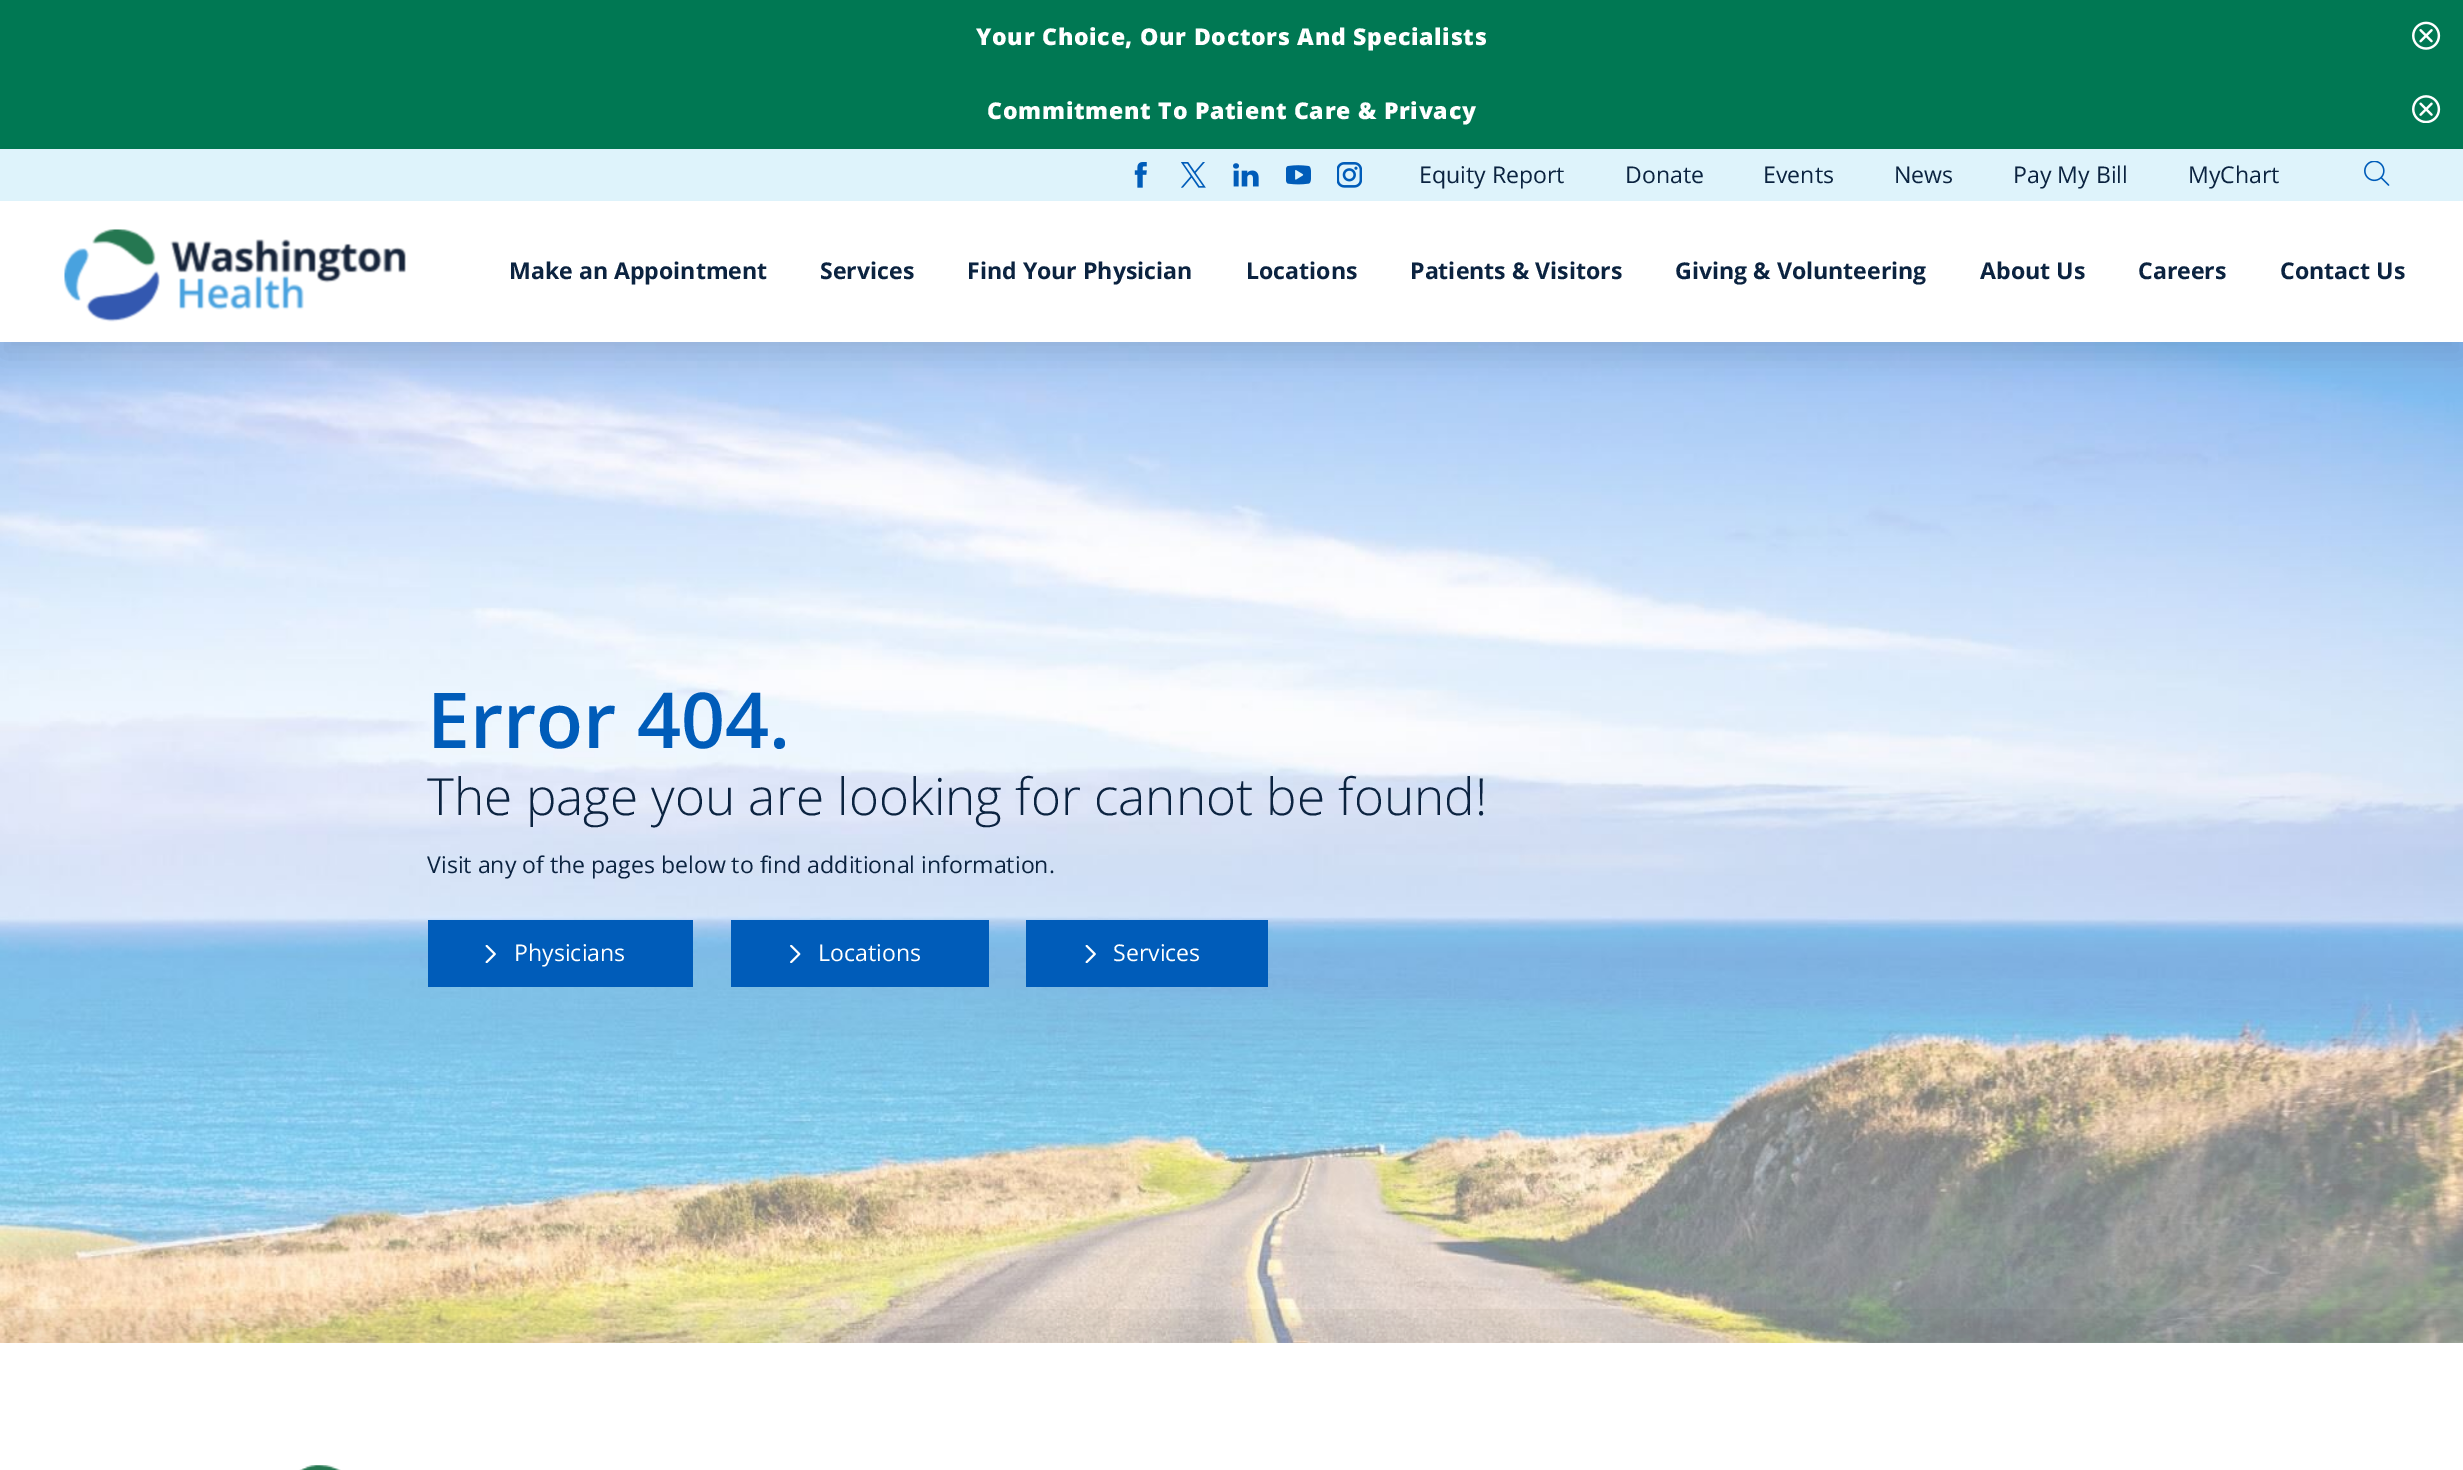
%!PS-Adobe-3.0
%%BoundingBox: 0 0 2463 1470
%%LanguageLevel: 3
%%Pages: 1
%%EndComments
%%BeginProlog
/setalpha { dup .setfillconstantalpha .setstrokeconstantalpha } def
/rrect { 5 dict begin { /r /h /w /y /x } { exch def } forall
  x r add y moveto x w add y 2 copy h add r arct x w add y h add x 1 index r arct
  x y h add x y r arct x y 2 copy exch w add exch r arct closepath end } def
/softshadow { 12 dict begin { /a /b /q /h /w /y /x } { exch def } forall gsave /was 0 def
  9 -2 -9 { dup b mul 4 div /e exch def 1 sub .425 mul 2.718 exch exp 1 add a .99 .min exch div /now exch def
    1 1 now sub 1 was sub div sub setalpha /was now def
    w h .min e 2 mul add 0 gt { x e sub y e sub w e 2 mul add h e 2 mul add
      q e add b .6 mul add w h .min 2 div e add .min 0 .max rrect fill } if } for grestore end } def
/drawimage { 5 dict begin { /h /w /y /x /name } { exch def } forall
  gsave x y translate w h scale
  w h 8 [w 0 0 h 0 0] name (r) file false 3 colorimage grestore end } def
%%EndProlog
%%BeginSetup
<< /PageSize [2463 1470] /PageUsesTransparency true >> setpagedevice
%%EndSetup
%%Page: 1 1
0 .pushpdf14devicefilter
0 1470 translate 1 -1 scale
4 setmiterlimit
1 setgray
0 0 2463 1470 rectfill
0 0.471 0.325 setrgbcolor
0 0 2463 149 rectfill
(images/1.raw) 2412 21 29 29 drawimage
(images/10.raw) 0 342 2463 1001 drawimage
0 setgray
0 164 2463 193 0 15 0.1 softshadow
(images/2.raw) 2412 95 29 28 drawimage
1 setgray
0 201 2463 141 rectfill
0.871 0.953 0.984 setrgbcolor
0 149 2463 52 rectfill
(images/3.raw) 1134 162 13 26 drawimage
(images/4.raw) 1181 162 25 26 drawimage
(images/5.raw) 1233 163 26 24 drawimage
(images/6.raw) 1286 165 25 20 drawimage
(images/7.raw) 1337 162 25 26 drawimage
(images/8.raw) 2364 161 26 25 drawimage
(images/9.raw) 64 229 342 93 drawimage
0 0.361 0.725 setrgbcolor
428 920 265 67 rectfill
(images/11.raw) 485 945 11 18 drawimage
731 920 258 67 rectfill
(images/12.raw) 790 945 11 18 drawimage
1026 920 242 67 rectfill
(images/11.raw) 1085 945 11 18 drawimage
gsave
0 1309 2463 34 rectclip
0 setgray
0 1313 2463 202 0 15 0.05 softshadow
grestore
(images/13.raw) 299 1465 42 5 drawimage
/OpenSans-ExtraBold [23.1 0 0 -23.1 0 0] selectfont
1 setgray
976 45 moveto 0.7 0 (Your Choice, Our Doctors And Specialists) ashow
987 119 moveto 0.7 0 (Commitment To Patient Care & Privacy) ashow
/OpenSans-Regular [23.1 0 0 -23.1 0 0] selectfont
0.043 0.137 0.251 setrgbcolor
1419 183 moveto (Equity Report) show
1625 183 moveto (Donate) show
1763 183 moveto (Events) show
1894 183 moveto (News) show
2013 183 moveto (Pay My Bill) show
2188 183 moveto (MyChart) show
/OpenSans-Bold [23.1 0 0 -23.1 0 0] selectfont
509 279 moveto (Make an Appointment) show
820 279 moveto (Services) show
967 279 moveto (Find Your Physician) show
1246 279 moveto (Locations) show
1410 279 moveto (Patients & Visitors) show
1675 279 moveto (Giving & Volunteering) show
1980 279 moveto (About Us) show
2138 279 moveto (Careers) show
2280 279 moveto (Contact Us) show
/OpenSans-SemiBold [77 0 0 -77 0 0] selectfont
0 0.361 0.725 setrgbcolor
427 748 moveto (Error 404.) show
/OpenSans-Light [51.25 0 0 -51.25 0 0] selectfont
0.043 0.137 0.251 setrgbcolor
427 815 moveto (The page you are looking for cannot be found!) show
/OpenSans-Regular [23.1 0 0 -23.1 0 0] selectfont
427 873 moveto (Visit any of the pages below to find additional information.) show
1 setgray
514 961 moveto (Physicians) show
818 961 moveto (Locations) show
1113 961 moveto (Services) show
.poppdf14devicefilter showpage
%%EOF
